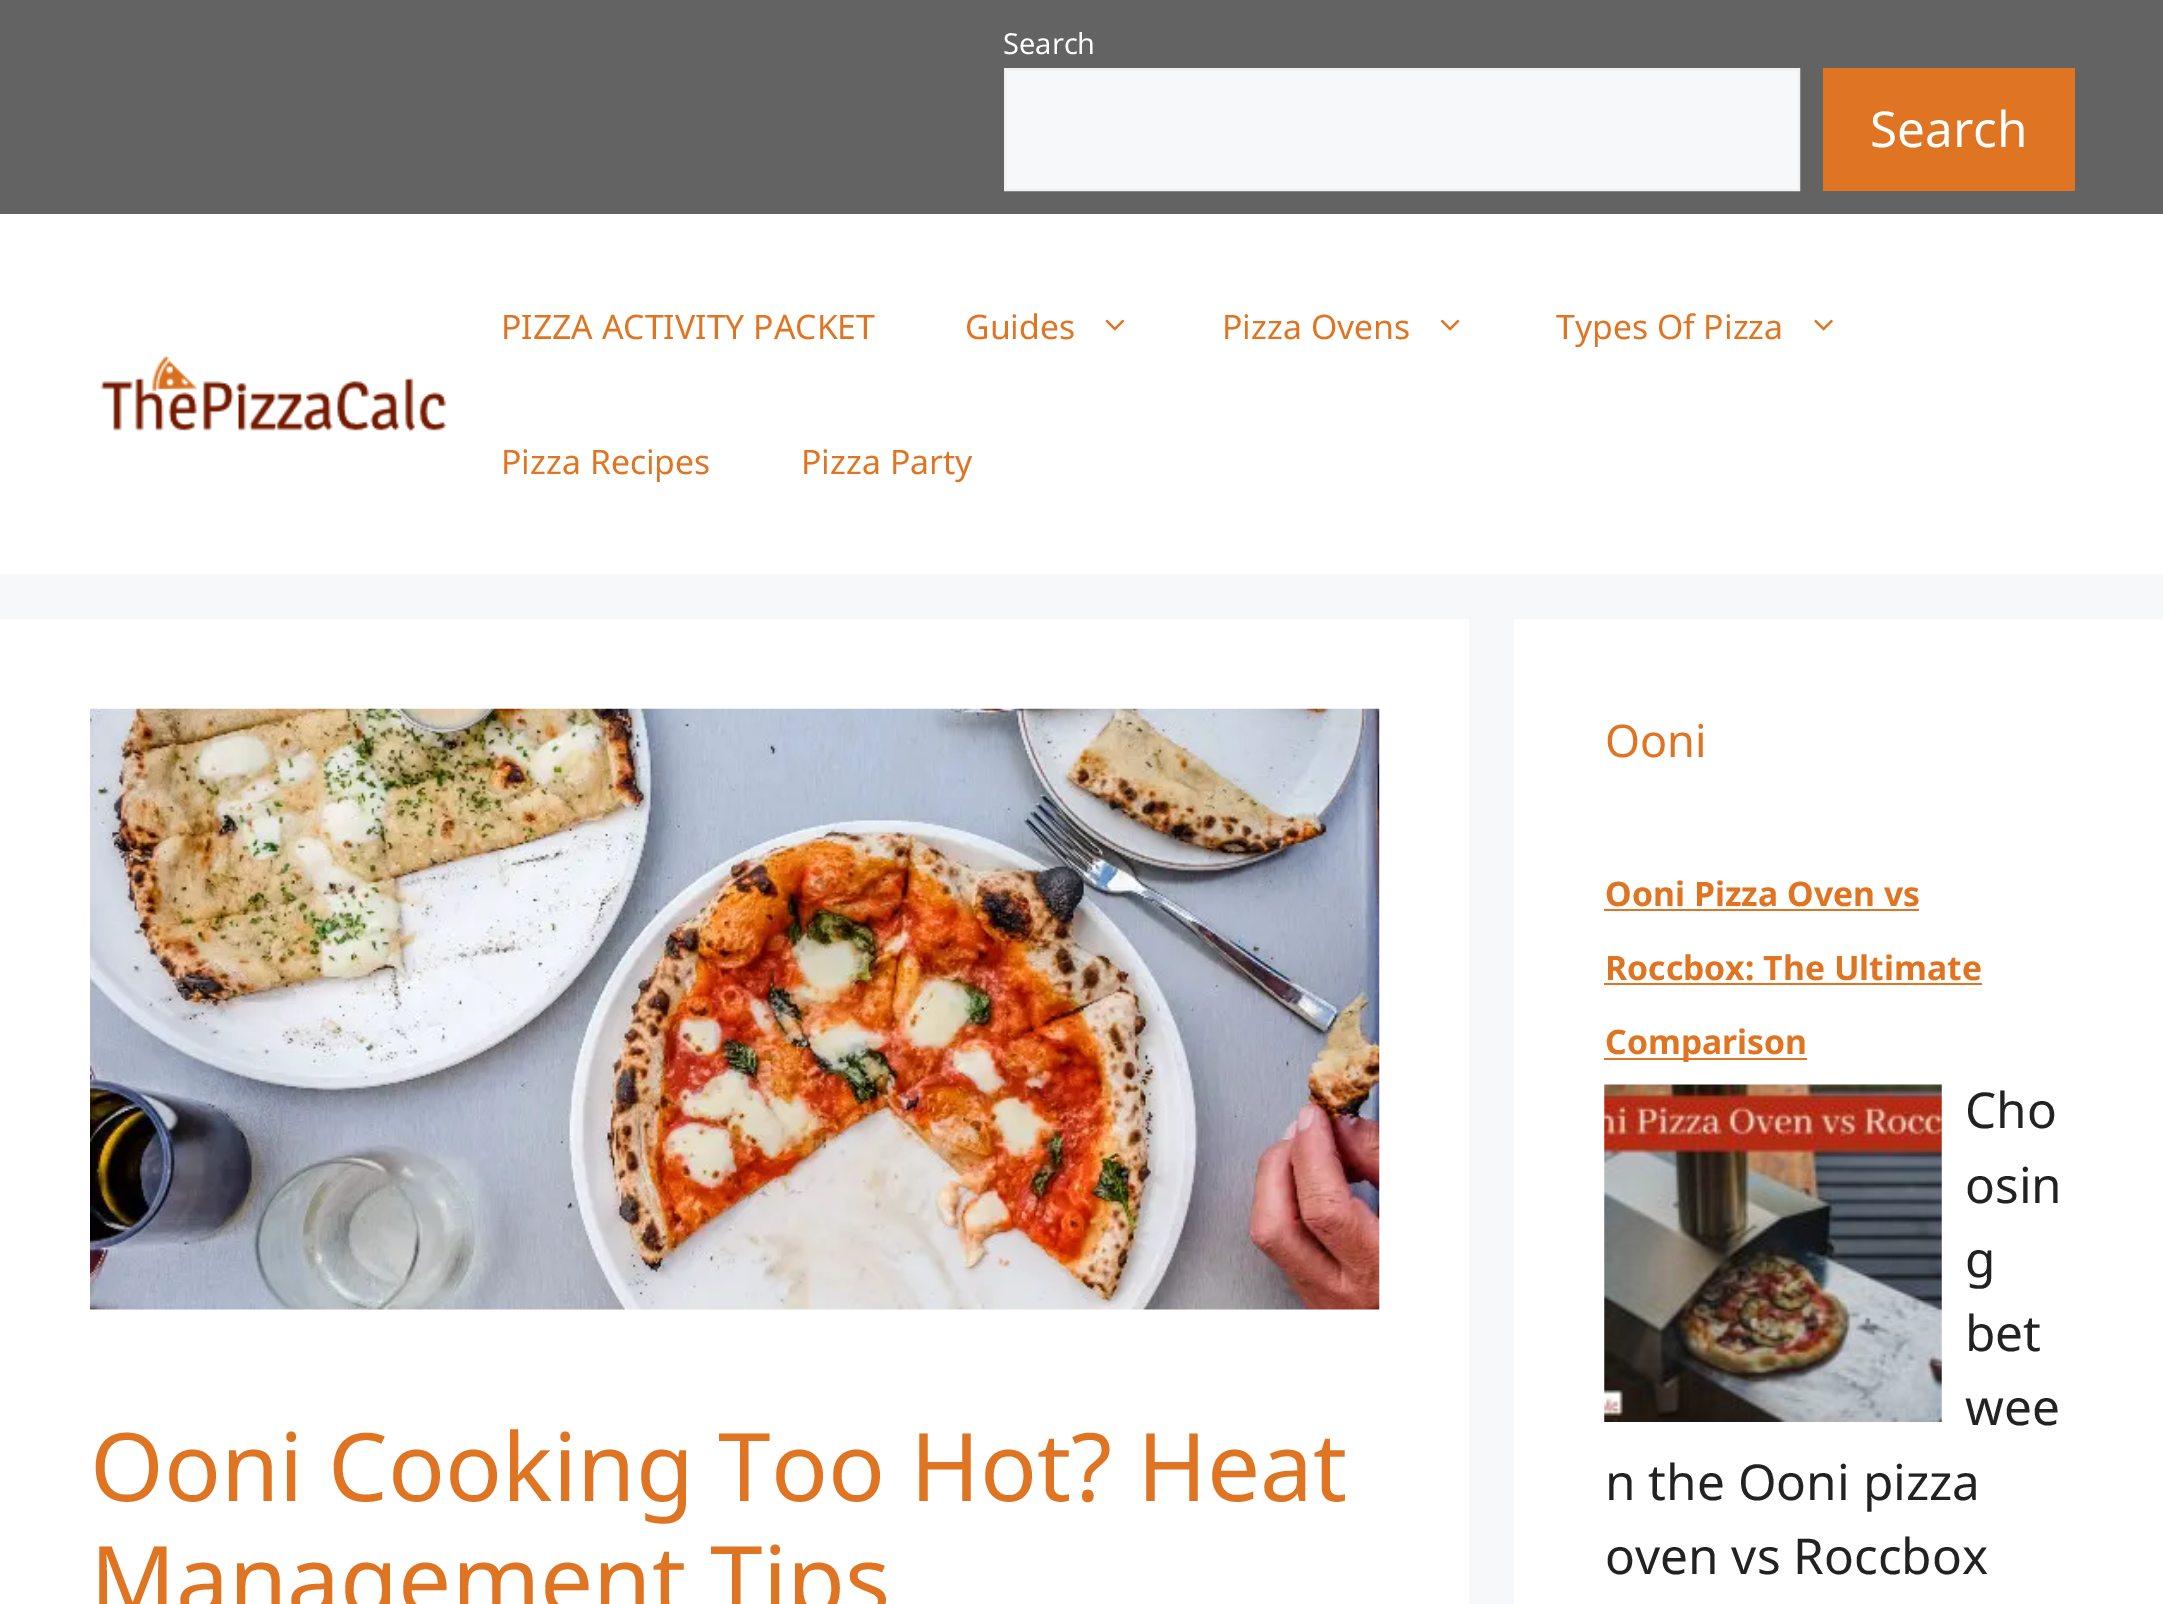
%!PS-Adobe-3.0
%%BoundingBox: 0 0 2163 1604
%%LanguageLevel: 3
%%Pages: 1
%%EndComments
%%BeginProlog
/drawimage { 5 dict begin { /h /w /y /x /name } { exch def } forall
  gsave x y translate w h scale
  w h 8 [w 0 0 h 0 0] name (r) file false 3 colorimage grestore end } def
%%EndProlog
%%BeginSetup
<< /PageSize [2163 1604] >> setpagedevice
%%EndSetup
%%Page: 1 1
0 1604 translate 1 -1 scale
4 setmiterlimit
0.969 0.973 0.976 setrgbcolor
0 0 2163 1604 rectfill
0.388 setgray
0 0 2163 214 rectfill
0.969 0.973 0.976 setrgbcolor
newpath 1005 69 moveto 1799 69 lineto 1799 190 lineto 1005 190 lineto closepath gsave fill grestore
0.941 setgray
2 setlinewidth
stroke
0.875 0.459 0.137 setrgbcolor
1823 68 252 123 rectfill
1 setgray
0 214 2163 360 rectfill
(images/1.raw) 100 355 347 77 drawimage
(images/2.raw) 1105 319 20 12 drawimage
(images/3.raw) 1440 319 20 12 drawimage
(images/4.raw) 1814 319 19 12 drawimage
0 619 1469 985 rectfill
(images/5.raw) 90 708 1290 602 drawimage
1514 619 649 985 rectfill
0.875 0.459 0.137 setrgbcolor
1604 909 315 2 rectfill
1604 983 378 2 rectfill
1604 1058 203 2 rectfill
(images/6.raw) 1604 1084 338 338 drawimage
/NotoSans-Regular [29 0 0 -29 0 0] selectfont
1 setgray
1003 54 moveto (Search) show
/NotoSans-Regular [49.5 0 0 -49.5 0 0] selectfont
1870 147 moveto (Search) show
/NotoSans-Regular [33.75 0 0 -33.75 0 0] selectfont
0.875 0.459 0.137 setrgbcolor
501 339 moveto (PIZZA ACTIVITY PACKET) show
965 339 moveto (Guides) show
1222 339 moveto (Pizza Ovens) show
1556 339 moveto (Types Of Pizza) show
501 474 moveto (Pizza Recipes) show
801 474 moveto (Pizza Party) show
/NotoSans-Regular [94.5 0 0 -94.5 0 0] selectfont
90 1501 moveto (Ooni Cooking Too Hot? Heat) show
90 1614 moveto (Management Tips) show
/NotoSans-Regular [45 0 0 -45 0 0] selectfont
1605 757 moveto (Ooni) show
/NotoSans-Bold [33.75 0 0 -33.75 0 0] selectfont
1605 906 moveto (Ooni Pizza Oven vs) show
1605 980 moveto (Roccbox: The Ultimate) show
1605 1054 moveto (Comparison) show
/NotoSans-Regular [49.5 0 0 -49.5 0 0] selectfont
0.133 setgray
1965 1128 moveto (Cho) show
1965 1203 moveto (osin) show
1965 1277 moveto (g) show
1965 1351 moveto (bet) show
1965 1425 moveto (wee) show
1605 1500 moveto (n the Ooni pizza) show
1605 1574 moveto (oven vs Roccbox) show
showpage
%%EOF
